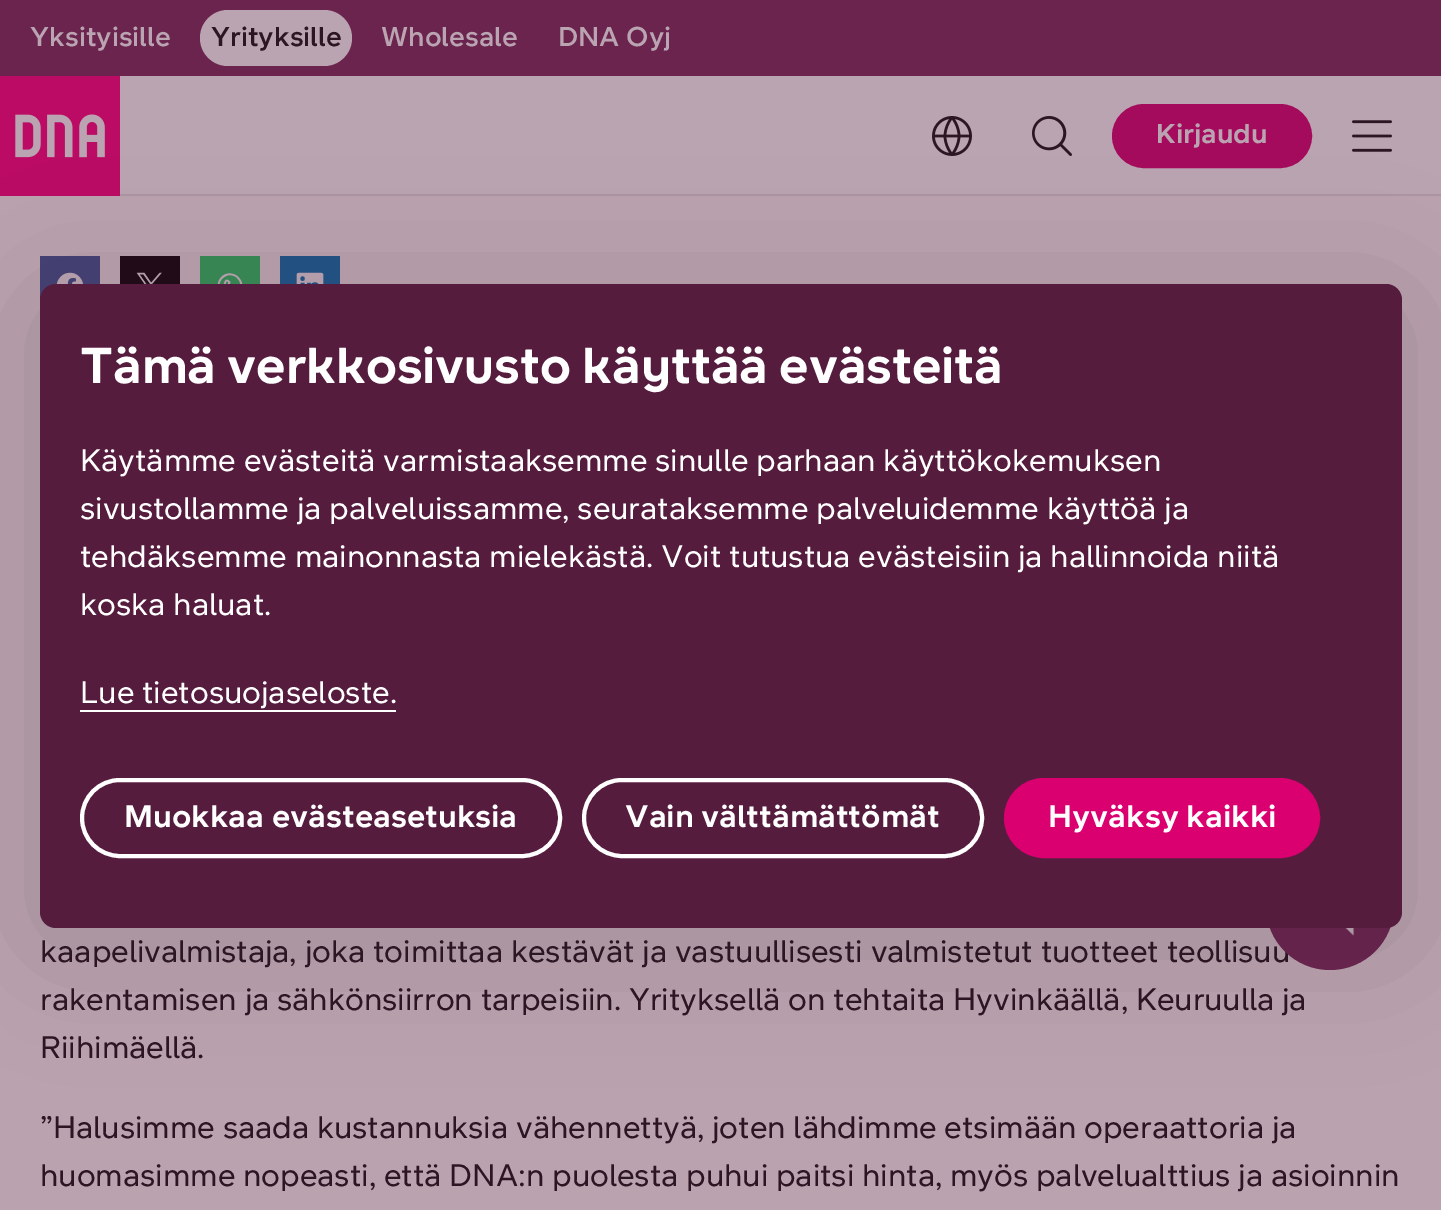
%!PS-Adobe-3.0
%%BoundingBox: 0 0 1441 1210
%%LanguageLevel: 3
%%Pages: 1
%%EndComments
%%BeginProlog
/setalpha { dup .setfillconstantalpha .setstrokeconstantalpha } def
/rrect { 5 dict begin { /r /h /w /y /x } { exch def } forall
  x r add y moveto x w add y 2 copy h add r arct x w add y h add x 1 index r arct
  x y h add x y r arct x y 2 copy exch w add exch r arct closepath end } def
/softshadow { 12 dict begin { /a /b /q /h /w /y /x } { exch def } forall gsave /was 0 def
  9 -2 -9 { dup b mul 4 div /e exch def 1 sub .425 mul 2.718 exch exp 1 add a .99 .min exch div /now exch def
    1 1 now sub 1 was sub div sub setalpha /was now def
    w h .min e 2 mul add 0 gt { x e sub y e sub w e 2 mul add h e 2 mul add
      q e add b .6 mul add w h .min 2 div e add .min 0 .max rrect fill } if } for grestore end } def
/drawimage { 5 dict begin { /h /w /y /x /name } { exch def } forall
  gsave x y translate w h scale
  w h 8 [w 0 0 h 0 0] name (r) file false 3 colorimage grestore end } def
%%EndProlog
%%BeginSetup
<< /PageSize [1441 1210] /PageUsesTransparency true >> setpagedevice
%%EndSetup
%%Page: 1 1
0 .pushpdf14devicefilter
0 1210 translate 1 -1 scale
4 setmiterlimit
0.729 0.635 0.686 setrgbcolor
0 0 1441 1210 rectfill
0.42 0.141 0.306 setrgbcolor
0 0 1441 76 rectfill
0.733 0.643 0.698 setrgbcolor
200 10 152 56 28 rrect fill
120 76 1321 118 rectfill
0.678 0.584 0.631 setrgbcolor
120 194 1321 2 rectfill
(images/1.raw) 0 76 120 120 drawimage
(images/2.raw) 932 116 40 40 drawimage
(images/3.raw) 1032 116 40 40 drawimage
0.647 0.043 0.361 setrgbcolor
1114 106 196 60 30 rrect gsave fill grestore
4 setlinewidth
stroke
(images/4.raw) 1352 120 40 32 drawimage
0.271 0.255 0.455 setrgbcolor
40 256 60 44 rectfill
(images/6.raw) 56 272 27 12 drawimage
0.133 0.043 0.098 setrgbcolor
120 256 60 28 rectfill
(images/7.raw) 136 272 26 12 drawimage
0.22 0.541 0.337 setrgbcolor
200 256 60 28 rectfill
(images/8.raw) 217 273 26 11 drawimage
0.133 0.325 0.522 setrgbcolor
280 256 60 28 rectfill
(images/9.raw) 296 272 28 12 drawimage
/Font-Medium [28 0 0 -28 0 0] selectfont
0.733 0.643 0.698 setrgbcolor
30 46 moveto (Yksityisille) show
0.176 0.086 0.141 setrgbcolor
211 46 moveto (Yrityksille) show
0.733 0.643 0.698 setrgbcolor
381 46 moveto (Wholesale) show
558 46 moveto (DNA Oyj) show
/Font-Bold [28 0 0 -28 0 0] selectfont
1156 143 moveto (Kirjaudu) show
/Font-Regular [32 0 0 -32 0 0] selectfont
0.176 0.086 0.141 setrgbcolor
40 962 moveto (kaapelivalmistaja, joka toimittaa kestävät ja vastuullisesti valmistetut tuotteet teollisuu) show
0.42 0.141 0.306 setrgbcolor
newpath 1330 906 64 0 360 arc closepath fill
(images/5.raw) 1308 928 50 8 drawimage
0.071 setgray
40 300 1362 644 16 64 0.16 softshadow
0.333 0.11 0.243 setrgbcolor
40 284 1362 644 16 rrect fill
1 setgray
82 780 478 76 38 rrect stroke
/Font-Bold [32 0 0 -32 0 0] selectfont
124 827 moveto (Muokkaa evästeasetuksia) show
0.855 0 0.439 setrgbcolor
1006 780 312 76 38 rrect gsave fill grestore
stroke
1 setgray
1048 827 moveto (Hyväksy kaikki) show
584 780 398 76 38 rrect stroke
625 827 moveto (Vain välttämättömät) show
/Font-Regular [32 0 0 -32 0 0] selectfont
80 703 moveto (Lue tietosuojaseloste.) show
80 710 316 2 rectfill
80 615 moveto (koska haluat.) show
80 567 moveto (tehdäksemme mainonnasta mielekästä. Voit tutustua evästeisiin ja hallinnoida niitä) show
80 519 moveto (sivustollamme ja palveluissamme, seurataksemme palveluidemme käyttöä ja) show
80 471 moveto (Käytämme evästeitä varmistaaksemme sinulle parhaan käyttökokemuksen) show
/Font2-Bold [52 0 0 -52 0 0] selectfont
80 383 moveto (Tämä verkkosivusto käyttää evästeitä) show
/Font-Regular [32 0 0 -32 0 0] selectfont
0.176 0.086 0.141 setrgbcolor
40 1010 moveto (rakentamisen ja sähkönsiirron tarpeisiin. Yrityksellä on tehtaita Hyvinkäällä, Keuruulla ja) show
40 1058 moveto (Riihimäellä.) show
40 1138 moveto (”Halusimme saada kustannuksia vähennettyä, joten lähdimme etsimään operaattoria ja) show
40 1186 moveto (huomasimme nopeasti, että DNA:n puolesta puhui paitsi hinta, myös palvelualttius ja asioinnin) show
.poppdf14devicefilter showpage
%%EOF
